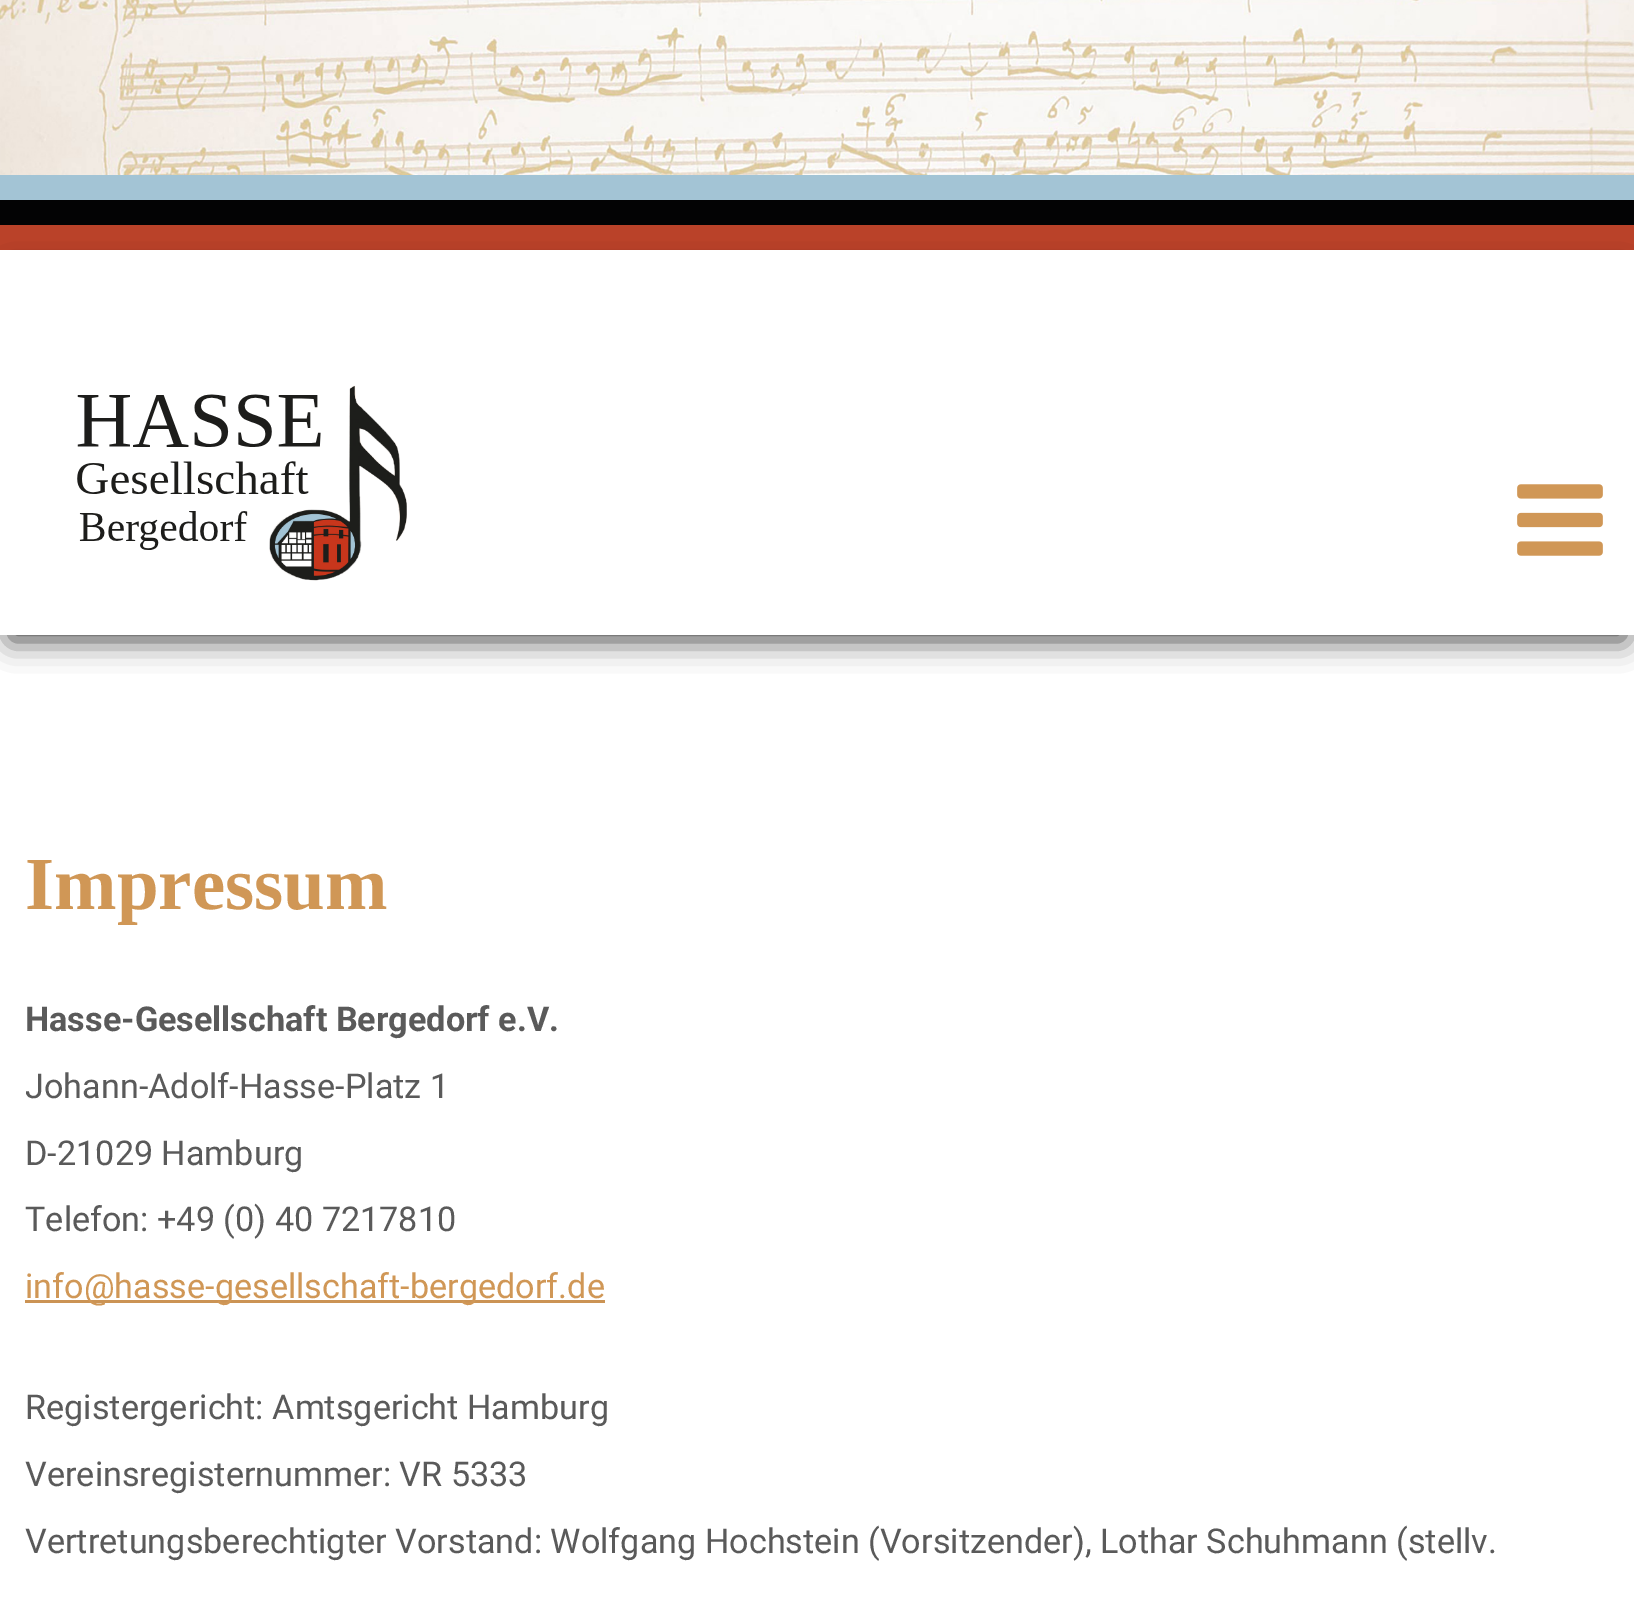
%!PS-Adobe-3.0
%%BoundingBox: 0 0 1634 1598
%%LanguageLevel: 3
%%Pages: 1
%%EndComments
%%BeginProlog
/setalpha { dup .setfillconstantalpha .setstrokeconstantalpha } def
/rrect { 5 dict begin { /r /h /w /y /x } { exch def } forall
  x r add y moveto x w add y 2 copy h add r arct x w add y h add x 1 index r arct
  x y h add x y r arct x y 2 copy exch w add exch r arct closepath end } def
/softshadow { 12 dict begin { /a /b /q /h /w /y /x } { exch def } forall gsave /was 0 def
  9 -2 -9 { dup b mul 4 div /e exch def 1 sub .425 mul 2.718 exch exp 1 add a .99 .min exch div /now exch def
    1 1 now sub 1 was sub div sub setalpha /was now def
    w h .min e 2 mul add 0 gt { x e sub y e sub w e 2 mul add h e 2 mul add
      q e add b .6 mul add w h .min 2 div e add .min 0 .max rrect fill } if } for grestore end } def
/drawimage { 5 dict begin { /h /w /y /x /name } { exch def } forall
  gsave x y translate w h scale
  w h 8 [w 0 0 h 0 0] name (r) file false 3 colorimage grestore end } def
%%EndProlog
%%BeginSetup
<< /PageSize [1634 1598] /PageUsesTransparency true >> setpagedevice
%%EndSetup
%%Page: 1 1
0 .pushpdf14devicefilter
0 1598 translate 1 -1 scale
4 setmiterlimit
1 setgray
0 0 1634 1598 rectfill
(images/1.raw) 0 0 1634 175 drawimage
0.639 0.769 0.835 setrgbcolor
newpath -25 175 moveto -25 610 lineto 0 610 lineto 0 250 lineto 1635 250 lineto 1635 610 lineto 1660 610 lineto 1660 175 lineto closepath fill
0.012 0.012 0.016 setrgbcolor
newpath -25 200 moveto -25 635 lineto 0 635 lineto 0 250 lineto 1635 250 lineto 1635 635 lineto 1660 635 lineto 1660 200 lineto closepath fill
0.729 0.259 0.161 setrgbcolor
0 225 1634 25 rectfill
gsave
newpath 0 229 moveto 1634 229 lineto 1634 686 lineto 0 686 lineto closepath 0 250 moveto 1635 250 lineto 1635 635 lineto 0 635 lineto closepath eoclip newpath
0 setgray
10 275 1615 365 0 15 0.75 softshadow
grestore
(images/2.raw) 77 385 330 196 drawimage
(images/3.raw) 1517 484 86 72 drawimage
0.796 0.576 0.329 setrgbcolor
25 1300 580 3 rectfill
/LiberationSerif-Bold [75 0 0 -75 0 0] selectfont
0.816 0.592 0.337 setrgbcolor
25 909 moveto (Impressum) show
/Roboto-Bold [34.2 0 0 -34.2 0 0] selectfont
0.353 setgray
25 1031 moveto (Hasse-Gesellschaft Bergedorf e.V.) show
/Roboto-Regular [34.2 0 0 -34.2 0 0] selectfont
25 1098 moveto (Johann-Adolf-Hasse-Platz 1) show
25 1165 moveto (D-21029 Hamburg) show
25 1231 moveto (Telefon: +49 \(0\) 40 7217810) show
0.816 0.592 0.337 setrgbcolor
25 1298 moveto (info@hasse-gesellschaft-bergedorf.de) show
0.353 setgray
25 1419 moveto (Registergericht: Amtsgericht Hamburg) show
25 1486 moveto (Vereinsregisternummer: VR 5333) show
25 1553 moveto (Vertretungsberechtigter Vorstand: Wolfgang Hochstein \(Vorsitzender\), Lothar Schuhmann \(stellv.) show
.poppdf14devicefilter showpage
%%EOF
